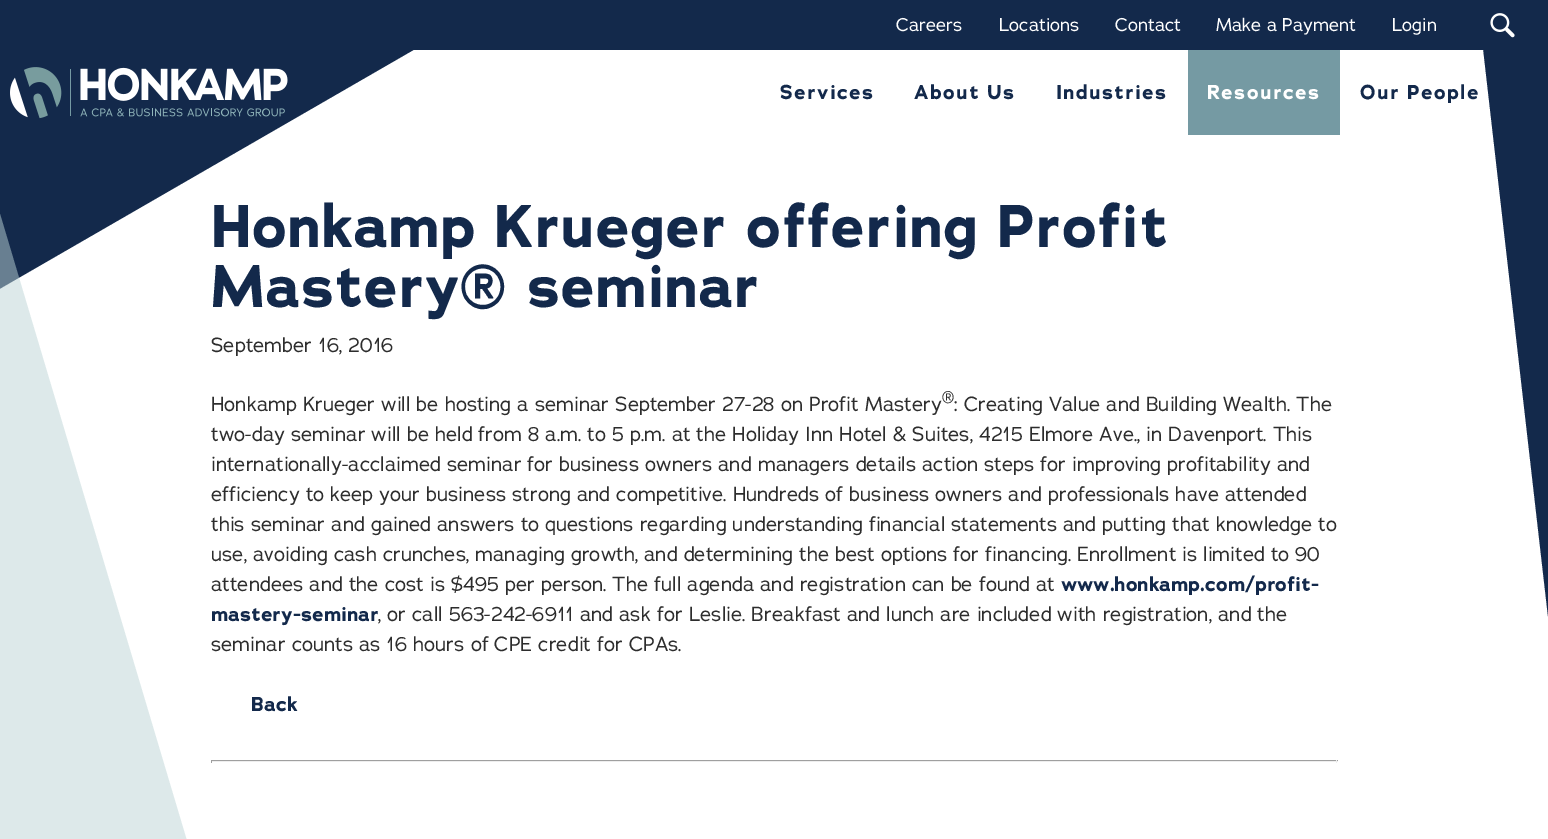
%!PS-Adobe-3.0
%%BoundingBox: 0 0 1548 839
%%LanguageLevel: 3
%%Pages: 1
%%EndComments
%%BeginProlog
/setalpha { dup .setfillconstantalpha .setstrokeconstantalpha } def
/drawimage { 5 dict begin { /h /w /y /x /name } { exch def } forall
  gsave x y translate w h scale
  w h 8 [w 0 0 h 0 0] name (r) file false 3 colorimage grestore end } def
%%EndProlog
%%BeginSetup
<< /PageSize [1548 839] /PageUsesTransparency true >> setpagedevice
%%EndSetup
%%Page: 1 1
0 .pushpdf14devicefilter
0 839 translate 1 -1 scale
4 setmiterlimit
1 setgray
0 0 1548 839 rectfill
0.075 0.161 0.294 setrgbcolor
newpath 0 0 moveto 500 0 lineto -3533 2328 lineto -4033 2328 lineto closepath fill
newpath 1478 0 moveto 1478 4 lineto 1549 625 lineto 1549 0 lineto closepath fill
413 0 1071 50 rectfill
(images/1.raw) 1490 13 25 25 drawimage
(images/2.raw) 10 67 278 52 drawimage
0.459 0.604 0.639 setrgbcolor
1188 50 152 85 rectfill
0.5 setalpha
0.737 0.831 0.839 setrgbcolor
newpath 0 214 moveto 0 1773 lineto 465 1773 lineto closepath fill
1 setalpha
0.624 setgray
211 760 1127 1 rectfill
0.933 setgray
1336 760 1 3 rectfill
211 761 1127 1 rectfill
0.624 setgray
211 760 1 3 rectfill
/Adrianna-Regular [18 0 0 -18 0 0] selectfont
1 setgray
896 31 moveto (Careers) show
999 31 moveto (Locations) show
1115 31 moveto (Contact) show
1216 31 moveto (Make a Payment) show
1392 31 moveto (Login) show
/Adrianna-Bold [20 0 0 -20 0 0] selectfont
0.075 0.161 0.294 setrgbcolor
780 99 moveto 1.25 0 (Services) ashow
914 99 moveto 1.25 0 (About Us) ashow
1056 99 moveto 1.25 0 (Industries) ashow
1 setgray
1207 99 moveto 1.25 0 (Resources) ashow
0.075 0.161 0.294 setrgbcolor
1360 99 moveto 1.25 0 (Our People) ashow
/Adrianna-Bold [60 0 0 -60 0 0] selectfont
211 247 moveto (Honkamp Krueger offering Profit) show
211 307 moveto (Mastery® seminar) show
/Adrianna-Regular [20 0 0 -20 0 0] selectfont
0.176 setgray
211 352 moveto (September 16, 2016) show
211 411 moveto (Honkamp Krueger will be hosting a seminar September 27-28 on Profit Mastery) show
/Adrianna-Regular [17 0 0 -17 0 0] selectfont
942 403 moveto (®) show
/Adrianna-Regular [20 0 0 -20 0 0] selectfont
954 411 moveto (: Creating Value and Building Wealth. The) show
211 441 moveto (two-day seminar will be held from 8 a.m. to 5 p.m. at the Holiday Inn Hotel & Suites, 4215 Elmore Ave., in Davenport. This) show
211 471 moveto (internationally-acclaimed seminar for business owners and managers details action steps for improving profitability and) show
211 501 moveto (efficiency to keep your business strong and competitive. Hundreds of business owners and professionals have attended) show
211 531 moveto (this seminar and gained answers to questions regarding understanding financial statements and putting that knowledge to) show
211 561 moveto (use, avoiding cash crunches, managing growth, and determining the best options for financing. Enrollment is limited to 90) show
211 591 moveto (attendees and the cost is $495 per person. The full agenda and registration can be found at) show
/Adrianna-Bold [20 0 0 -20 0 0] selectfont
0.075 0.161 0.294 setrgbcolor
1061 591 moveto (www.honkamp.com/profit-) show
211 621 moveto (mastery-seminar) show
/Adrianna-Regular [20 0 0 -20 0 0] selectfont
0.176 setgray
378 621 moveto (, or call 563-242-6911 and ask for Leslie. Breakfast and lunch are included with registration, and the) show
211 651 moveto (seminar counts as 16 hours of CPE credit for CPAs.) show
/Adrianna-Bold [20 0 0 -20 0 0] selectfont
0.075 0.161 0.294 setrgbcolor
251 711 moveto (Back) show
.poppdf14devicefilter showpage
%%EOF
